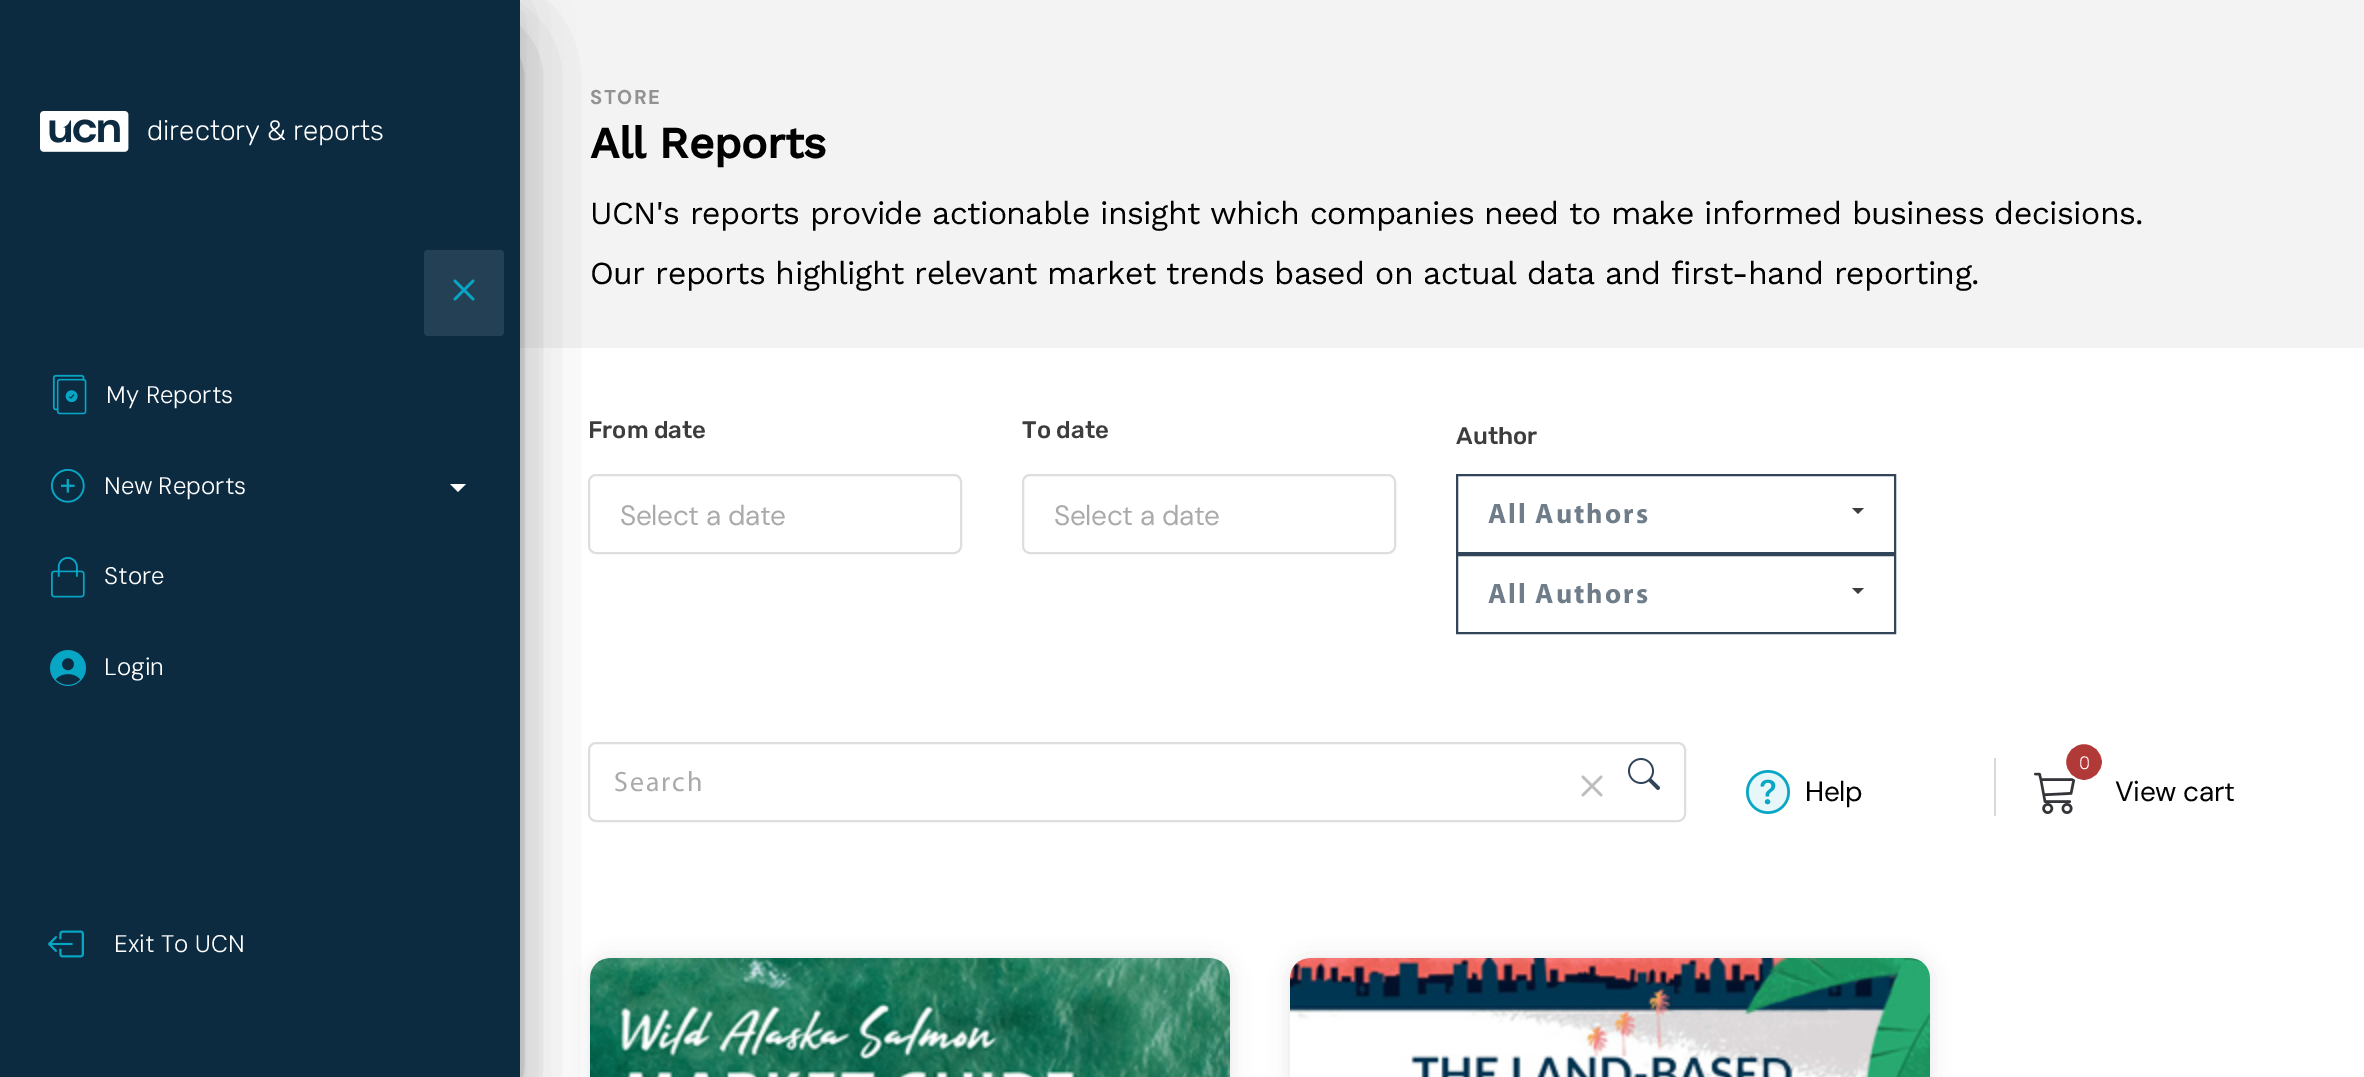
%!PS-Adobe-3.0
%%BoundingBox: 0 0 2364 1077
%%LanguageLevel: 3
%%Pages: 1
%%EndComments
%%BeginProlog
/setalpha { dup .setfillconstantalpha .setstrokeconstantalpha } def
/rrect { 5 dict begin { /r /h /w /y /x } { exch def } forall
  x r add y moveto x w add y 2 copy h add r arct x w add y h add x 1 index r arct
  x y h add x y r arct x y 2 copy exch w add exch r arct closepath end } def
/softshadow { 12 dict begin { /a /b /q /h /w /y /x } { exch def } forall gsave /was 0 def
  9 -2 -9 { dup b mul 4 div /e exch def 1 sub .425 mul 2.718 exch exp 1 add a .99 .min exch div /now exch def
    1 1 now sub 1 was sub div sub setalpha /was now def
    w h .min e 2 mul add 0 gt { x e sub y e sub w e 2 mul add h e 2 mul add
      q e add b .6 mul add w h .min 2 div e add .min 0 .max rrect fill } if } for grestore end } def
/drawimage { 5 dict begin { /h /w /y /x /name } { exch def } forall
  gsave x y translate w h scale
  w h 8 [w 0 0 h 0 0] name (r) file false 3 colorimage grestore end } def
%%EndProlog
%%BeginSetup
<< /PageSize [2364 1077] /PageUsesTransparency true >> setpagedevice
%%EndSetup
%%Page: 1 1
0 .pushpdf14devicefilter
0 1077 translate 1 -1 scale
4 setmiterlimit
1 setgray
0 0 2364 1077 rectfill
0.953 setgray
520 0 1844 348 rectfill
0 setgray
10 26 500 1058 0 10 0.2 softshadow
0.871 setgray
2 setlinewidth
589 475 372 78 7 rrect stroke
589 743 1096 78 7 rrect stroke
0 setgray
590 958 640 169 20 10 0.1 softshadow
1 setgray
590 958 640 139 20 rrect fill
(images/12.raw) 590 958 640 119 drawimage
0 setgray
0 8 520 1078 0 25 0.12 softshadow
24 56 472 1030 0 38 0.56 softshadow
0.047 0.169 0.255 setrgbcolor
0 0 520 1077 rectfill
(images/1.raw) 40 111 89 41 drawimage
0.141 0.251 0.329 setrgbcolor
424 250 80 86 4 rrect fill
(images/2.raw) 453 279 22 22 drawimage
(images/3.raw) 52 374 35 41 drawimage
(images/4.raw) 50 468 35 35 drawimage
1 setgray
newpath 450 484 moveto 466 484 lineto 458 492 lineto closepath fill
(images/5.raw) 51 557 34 41 drawimage
(images/6.raw) 50 650 36 36 drawimage
(images/7.raw) 48 930 36 28 drawimage
0.871 setgray
1023 475 372 78 7 rrect stroke
0.192 0.267 0.345 setrgbcolor
1457 475 438 78 rectstroke
0.239 0.239 0.243 setrgbcolor
newpath 1852 508 moveto 1864 508 lineto 1858 514 lineto closepath fill
0.192 0.267 0.345 setrgbcolor
1457 555 438 78 rectstroke
0.239 0.239 0.243 setrgbcolor
newpath 1852 588 moveto 1864 588 lineto 1858 594 lineto closepath fill
(images/8.raw) 1581 775 22 22 drawimage
(images/9.raw) 1628 758 32 32 drawimage
0.902 0.965 0.976 setrgbcolor
newpath 1768 792 22 0 360 arc closepath fill
(images/10.raw) 1746 770 44 44 drawimage
0.847 setgray
1994 758 2 58 rectfill
(images/11.raw) 2034 772 42 42 drawimage
0.694 0.227 0.224 setrgbcolor
newpath 2084 762 19 0 360 arc closepath gsave fill grestore
1 setgray
stroke
0 setgray
1290 958 640 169 20 10 0.1 softshadow
1 setgray
1290 958 640 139 20 rrect fill
(images/13.raw) 1290 958 640 119 drawimage
/Rubik-Light [28 0 0 -28 0 0] selectfont
147 140 moveto (directory & reports) show
/DMSans-Light [24 0 0 -24 0 0] selectfont
106 403 moveto (My Reports) show
104 494 moveto -1 0 32 (New Reports) widthshow
104 584 moveto (Store) show
104 675 moveto (Login) show
114 952 moveto (Exit To UCN) show
/DMSans-Bold [20 0 0 -20 0 0] selectfont
0.573 setgray
590 104 moveto 1.5 0 (STORE) ashow
/WorkSans-Bold [44 0 0 -44 0 0] selectfont
0 setgray
590 158 moveto -0.4 0 (All Reports) ashow
/WorkSans-Regular [32 0 0 -32 0 0] selectfont
590 224 moveto -0.6 0 (UCN's reports provide actionable insight which companies need to make informed business decisions.) ashow
590 284 moveto -0.6 0 (Our reports highlight relevant market trends based on actual data and first-hand reporting.) ashow
/Rubik-Medium [24 0 0 -24 0 0] selectfont
0.239 0.239 0.243 setrgbcolor
588 438 moveto (From date) show
/DMSans-Regular [28 0 0 -28 0 0] selectfont
0.667 setgray
620 525 moveto -0.4 0 (Select a date) ashow
/Rubik-Medium [24 0 0 -24 0 0] selectfont
0.239 0.239 0.243 setrgbcolor
1022 438 moveto (To date) show
/DMSans-Regular [28 0 0 -28 0 0] selectfont
0.667 setgray
1054 525 moveto -0.4 0 (Select a date) ashow
/Rubik-Medium [24 0 0 -24 0 0] selectfont
0.239 0.239 0.243 setrgbcolor
1456 444 moveto (Author) show
/Myriad-Bold [28 0 0 -28 0 0] selectfont
0.435 0.486 0.541 setrgbcolor
1488 523 moveto 2 0 (All Authors) ashow
1488 603 moveto 2 0 (All Authors) ashow
/Myriad-Regular [28 0 0 -28 0 0] selectfont
0.667 setgray
614 791 moveto 2 0 (Search) ashow
/DMSans-Regular [28 0 0 -28 0 0] selectfont
0 setgray
1805 801 moveto -0.4 0 (Help) ashow
/Rubik-Light [18 0 0 -18 0 0] selectfont
1 setgray
2079 769 moveto (0) show
/DMSans-Regular [28 0 0 -28 0 0] selectfont
0 setgray
2115 801 moveto -0.4 0 (View cart) ashow
.poppdf14devicefilter showpage
%%EOF
